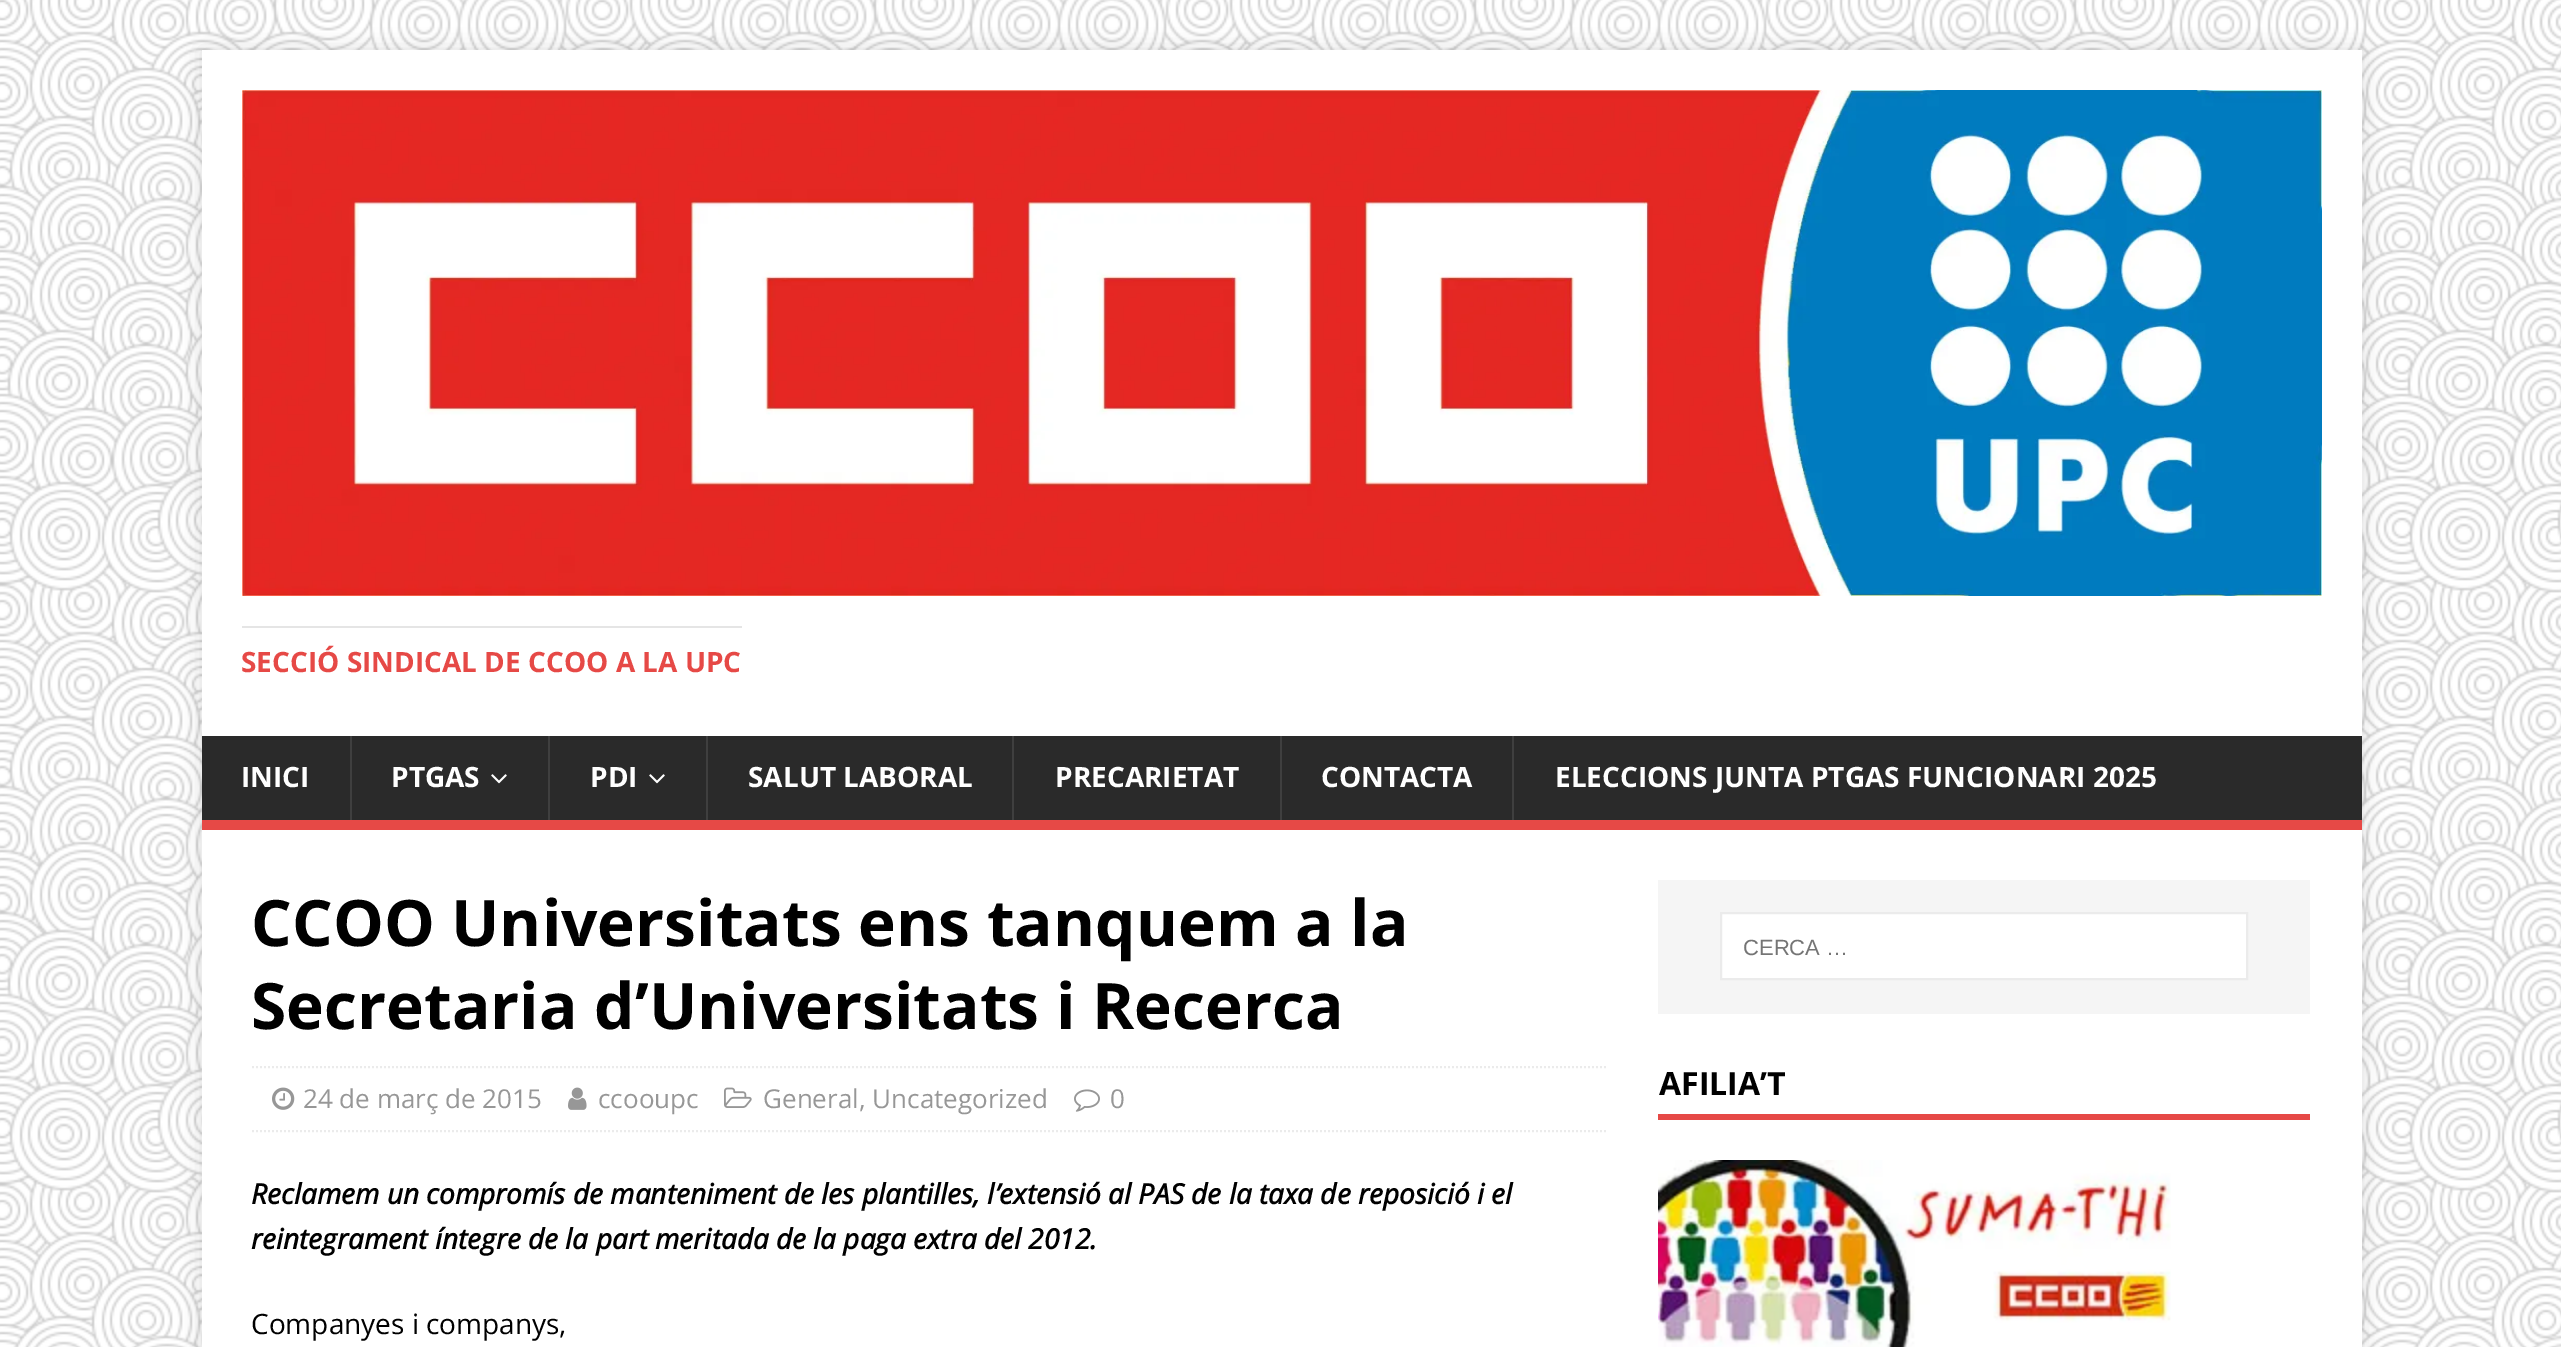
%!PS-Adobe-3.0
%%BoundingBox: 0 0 2561 1347
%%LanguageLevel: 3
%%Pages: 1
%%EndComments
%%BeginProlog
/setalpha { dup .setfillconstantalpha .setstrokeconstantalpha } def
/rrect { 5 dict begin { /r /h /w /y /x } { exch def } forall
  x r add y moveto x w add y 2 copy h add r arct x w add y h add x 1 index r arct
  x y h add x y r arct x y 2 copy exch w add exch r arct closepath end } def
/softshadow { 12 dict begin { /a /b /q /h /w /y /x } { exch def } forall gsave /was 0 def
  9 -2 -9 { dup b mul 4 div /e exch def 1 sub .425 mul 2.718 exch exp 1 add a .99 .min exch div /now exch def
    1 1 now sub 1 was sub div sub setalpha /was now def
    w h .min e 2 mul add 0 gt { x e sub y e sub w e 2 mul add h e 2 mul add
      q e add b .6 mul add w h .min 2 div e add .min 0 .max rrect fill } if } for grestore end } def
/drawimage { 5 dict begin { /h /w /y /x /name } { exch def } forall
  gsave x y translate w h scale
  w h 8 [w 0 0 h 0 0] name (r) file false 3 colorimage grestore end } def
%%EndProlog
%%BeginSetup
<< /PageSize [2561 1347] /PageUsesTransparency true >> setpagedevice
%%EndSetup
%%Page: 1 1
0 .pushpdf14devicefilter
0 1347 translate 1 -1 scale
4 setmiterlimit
1 setgray
0 0 2561 1347 rectfill
(images/1.raw) 0 0 2561 1347 drawimage
0.196 setgray
202 50 2160 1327 0 10 0.17 softshadow
1 setgray
202 50 2160 686 rectfill
(images/2.raw) 242 90 2080 506 drawimage
0.898 setgray
242 626 500 2 rectfill
0.165 setgray
202 736 2160 84 rectfill
0.902 0.286 0.275 setrgbcolor
202 820 2160 10 rectfill
0.247 setgray
350 736 2 84 rectfill
(images/3.raw) 491 774 16 10 drawimage
548 736 2 84 rectfill
(images/3.raw) 649 774 16 10 drawimage
706 736 2 84 rectfill
1012 736 2 84 rectfill
1280 736 2 84 rectfill
1512 736 2 84 rectfill
1 setgray
202 830 2160 517 rectfill
0.922 setgray
2 setlinewidth
[2 2] 0 setdash
newpath 252 1067 moveto 1608 1067 lineto stroke
newpath 252 1131 moveto 1608 1131 lineto stroke
(images/4.raw) 272 1087 23 23 drawimage
(images/5.raw) 568 1087 19 23 drawimage
(images/6.raw) 724 1087 28 21 drawimage
(images/7.raw) 1074 1089 26 23 drawimage
0.961 setgray
1658 880 652 134 rectfill
1 setgray
newpath 1721 913 moveto 2247 913 lineto 2247 979 lineto 1721 979 lineto closepath gsave fill grestore
0.922 setgray
[] 0 setdash
stroke
0.902 0.286 0.275 setrgbcolor
1658 1114 652 6 rectfill
(images/8.raw) 1658 1160 513 187 drawimage
/OpenSans-Bold [28 0 0 -28 0 0] selectfont
241 672 moveto (SECCIÓ SINDICAL DE CCOO A LA UPC) show
1 setgray
241 787 moveto (INICI) show
391 787 moveto (PTGAS) show
590 787 moveto (PDI) show
748 787 moveto (SALUT LABORAL) show
1055 787 moveto (PRECARIETAT) show
1321 787 moveto (CONTACTA) show
1555 787 moveto (ELECCIONS JUNTA PTGAS FUNCIONARI 2025) show
/OpenSans-Bold [64 0 0 -64 0 0] selectfont
0 setgray
251 946 moveto (CCOO Universitats ens tanquem a la) show
251 1029 moveto (Secretaria d’Universitats i Recerca) show
/OpenSans-Regular [26 0 0 -26 0 0] selectfont
0.592 setgray
303 1108 moveto (24 de març de 2015) show
598 1108 moveto (ccooupc) show
763 1108 moveto (General, Uncategorized) show
1110 1108 moveto (0) show
/OpenSans-BoldItalic [28 0 0 -28 0 0] selectfont
0 setgray
251 1204 moveto (Reclamem un compromís de manteniment de les plantilles, l’extensió al PAS de la taxa de reposició i el) show
251 1249 moveto (reintegrament íntegre de la part meritada de la paga extra del 2012.) show
/OpenSans-Regular [28 0 0 -28 0 0] selectfont
251 1334 moveto (Companyes i companys,) show
/LiberationSans-Regular [22 0 0 -22 0 0] selectfont
0.459 setgray
1743 955 moveto (CERCA …) show
/OpenSans-Bold [32 0 0 -32 0 0] selectfont
0 setgray
1659 1095 moveto (AFILIA’T) show
.poppdf14devicefilter showpage
%%EOF
